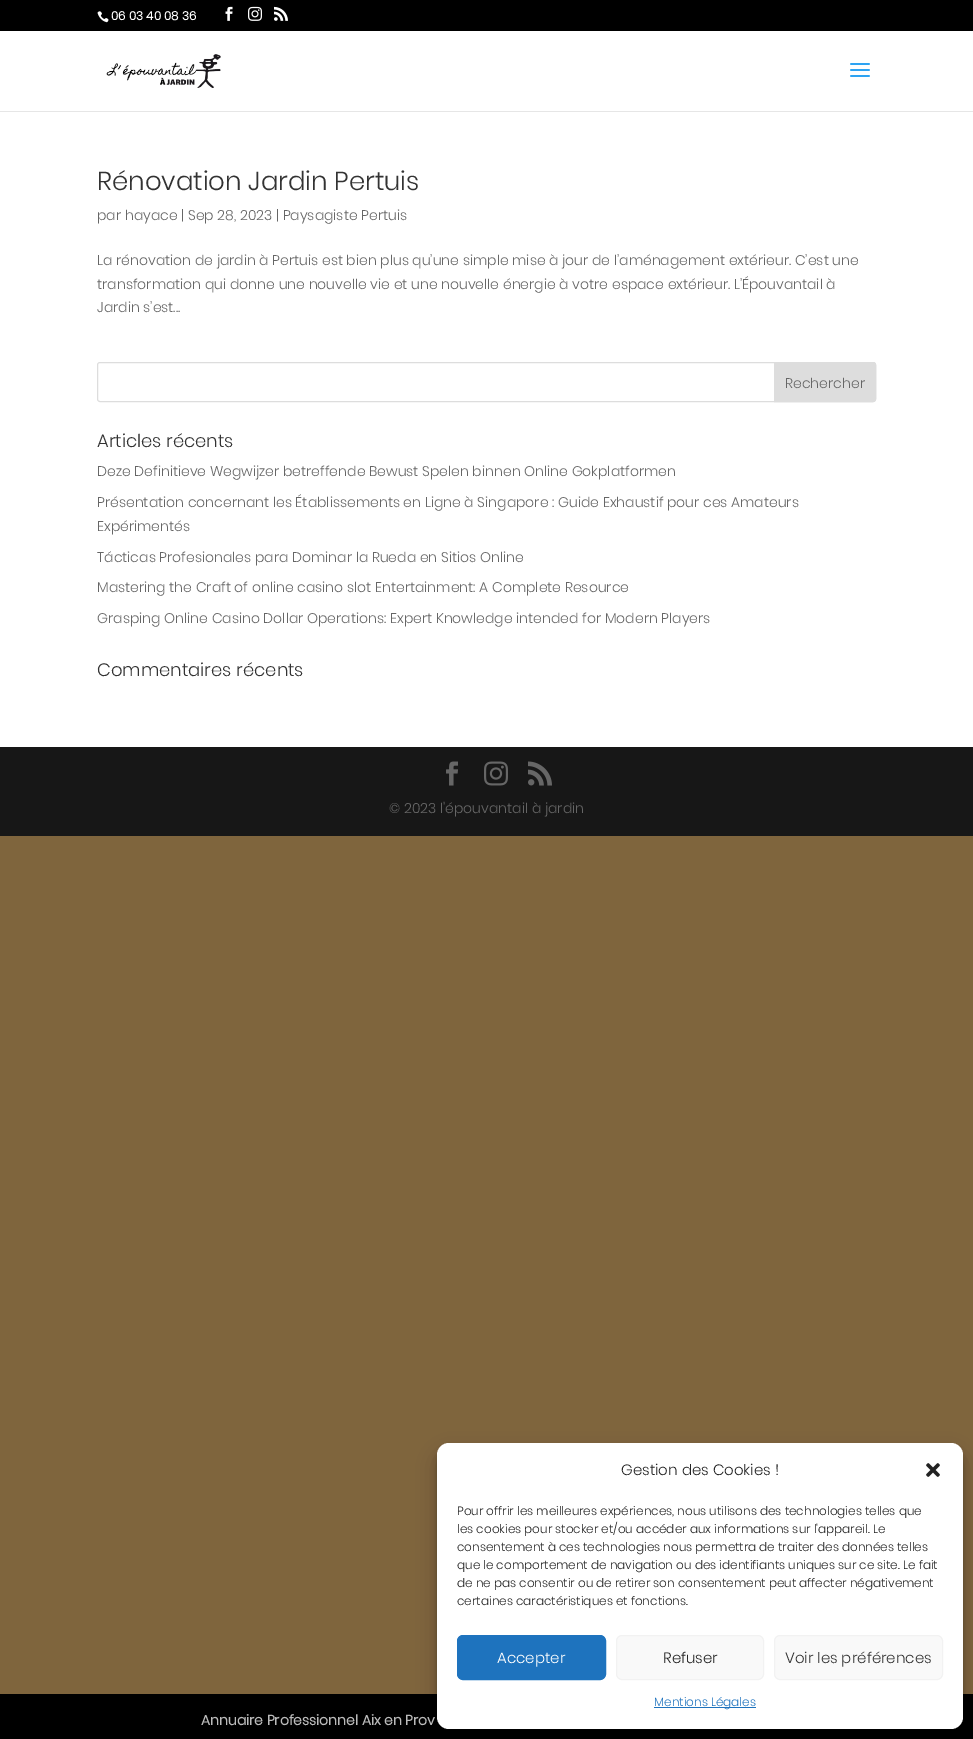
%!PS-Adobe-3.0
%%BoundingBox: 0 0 973 1739
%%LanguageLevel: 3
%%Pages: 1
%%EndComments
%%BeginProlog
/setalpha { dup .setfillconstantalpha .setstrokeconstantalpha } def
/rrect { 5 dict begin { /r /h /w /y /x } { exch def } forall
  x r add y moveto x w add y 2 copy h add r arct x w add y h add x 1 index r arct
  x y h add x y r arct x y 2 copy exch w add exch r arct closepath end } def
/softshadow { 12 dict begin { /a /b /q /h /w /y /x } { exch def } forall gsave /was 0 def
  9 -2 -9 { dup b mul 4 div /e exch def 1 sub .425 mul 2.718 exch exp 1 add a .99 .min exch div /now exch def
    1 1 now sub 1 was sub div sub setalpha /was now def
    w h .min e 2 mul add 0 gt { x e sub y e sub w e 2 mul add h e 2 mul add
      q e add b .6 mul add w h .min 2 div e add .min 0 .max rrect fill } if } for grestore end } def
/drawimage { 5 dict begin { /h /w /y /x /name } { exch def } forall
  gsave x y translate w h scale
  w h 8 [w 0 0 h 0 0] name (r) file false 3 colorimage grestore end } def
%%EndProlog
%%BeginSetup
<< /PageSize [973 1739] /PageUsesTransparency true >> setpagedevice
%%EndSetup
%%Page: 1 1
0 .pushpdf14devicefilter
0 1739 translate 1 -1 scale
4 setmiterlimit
0.498 0.396 0.239 setrgbcolor
0 0 973 1739 rectfill
0 setgray
0 0 973 31 rectfill
(images/1.raw) 97 11 12 12 drawimage
(images/2.raw) 225 6 8 15 drawimage
(images/3.raw) 248 6 14 15 drawimage
(images/4.raw) 274 6 14 15 drawimage
0.902 setgray
0 111 973 1 rectfill
1 setgray
0 31 973 80 rectfill
(images/5.raw) 106 54 115 34 drawimage
(images/6.raw) 850 63 20 14 drawimage
0 112 973 635 rectfill
0.867 setgray
97.5 362.5 778 39 2.5 rrect stroke
newpath 774.5 362.5 moveto 873 362.5 lineto 874.5 362.5 875.5 363.5 875.5 365 curveto 875.5 399 lineto 875.5 400.5 874.5 401.5 873 401.5 curveto 774.5 401.5 lineto closepath gsave fill grestore
stroke
0.09 setgray
0 747 973 89 rectfill
(images/7.raw) 446 761 12 25 drawimage
(images/8.raw) 484 761 24 25 drawimage
(images/9.raw) 528 761 24 25 drawimage
0 setgray
0 1694 973 45 rectfill
437 1449 526 286 12 3 0.23 softshadow
437 1453 526 286 12 10 0.19 softshadow
1 setgray
437 1443 526 286 12 rrect fill
(images/10.raw) 926 1463 14 14 drawimage
0.118 0.451 0.745 setrgbcolor
457.5 1635.5 148 44 5.5 rrect gsave fill grestore
stroke
0.976 setgray
616.5 1635.5 147 44 5.5 rrect gsave fill grestore
0.949 setgray
stroke
0.976 setgray
774.5 1635.5 168 44 5.5 rrect gsave fill grestore
0.949 setgray
stroke
0.118 0.451 0.745 setrgbcolor
654 1707 102 1 rectfill
/Poppins-Bold [12 0 0 -12 0 0] selectfont
1 setgray
111 20 moveto (06 03 40 08 36) show
/Poppins-Light [26 0 0 -26 0 0] selectfont
0.2 setgray
97 190 moveto (Rénovation Jardin Pertuis) show
/Poppins-Light [14 0 0 -14 0 0] selectfont
0.4 setgray
97 220 moveto (par hayace | Sep 28, 2023 | Paysagiste Pertuis) show
97 265 moveto (La rénovation de jardin à Pertuis est bien plus qu’une simple mise à jour de l’aménagement extérieur. C’est une) show
97 289 moveto (transformation qui donne une nouvelle vie et une nouvelle énergie à votre espace extérieur. L’Épouvantail à) show
97 312 moveto (Jardin s’est...) show
785 388 moveto (Rechercher) show
/Poppins-Light [18 0 0 -18 0 0] selectfont
0.2 setgray
97 447 moveto (Articles récents) show
/Poppins-Light [14 0 0 -14 0 0] selectfont
0.4 setgray
97 476 moveto (Deze Definitieve Wegwijzer betreffende Bewust Spelen binnen Online Gokplatformen) show
97 507 moveto (Présentation concernant les Établissements en Ligne à Singapore : Guide Exhaustif pour ces Amateurs) show
97 531 moveto (Expérimentés) show
97 562 moveto (Tácticas Profesionales para Dominar la Rueda en Sitios Online) show
97 592 moveto (Mastering the Craft of online casino slot Entertainment: A Complete Resource) show
97 623 moveto (Grasping Online Casino Dollar Operations: Expert Knowledge intended for Modern Players) show
/Poppins-Light [18 0 0 -18 0 0] selectfont
0.2 setgray
97 676 moveto (Commentaires récents) show
/Poppins-Light [14 0 0 -14 0 0] selectfont
0.4 setgray
389 813 moveto (© 2023 l'épouvantail à jardin) show
/Poppins-Bold [14 0 0 -14 0 0] selectfont
0.733 setgray
201 1725 moveto (Annuaire Professionnel Aix en Prov) show
/Poppins-Light [15 0 0 -15 0 0] selectfont
0.133 setgray
621 1475 moveto (Gestion des Cookies !) show
/Poppins-Light [12 0 0 -12 0 0] selectfont
457 1515 moveto (Pour offrir les meilleures expériences, nous utilisons des technologies telles que) show
457 1533 moveto (les cookies pour stocker et/ou accéder aux informations sur l'appareil. Le) show
457 1551 moveto (consentement à ces technologies nous permettra de traiter des données telles) show
457 1569 moveto (que le comportement de navigation ou des identifiants uniques sur ce site. Le fait) show
457 1587 moveto (de ne pas consentir ou de retirer son consentement peut affecter négativement) show
457 1605 moveto (certaines caractéristiques et fonctions.) show
/Poppins-Light [15 0 0 -15 0 0] selectfont
1 setgray
497 1663 moveto (Accepter) show
0.133 setgray
663 1663 moveto (Refuser) show
0.2 setgray
785 1663 moveto (Voir les préférences) show
/Poppins-Light [12 0 0 -12 0 0] selectfont
0.118 0.451 0.745 setrgbcolor
654 1706 moveto (Mentions Légales) show
.poppdf14devicefilter showpage
%%EOF
